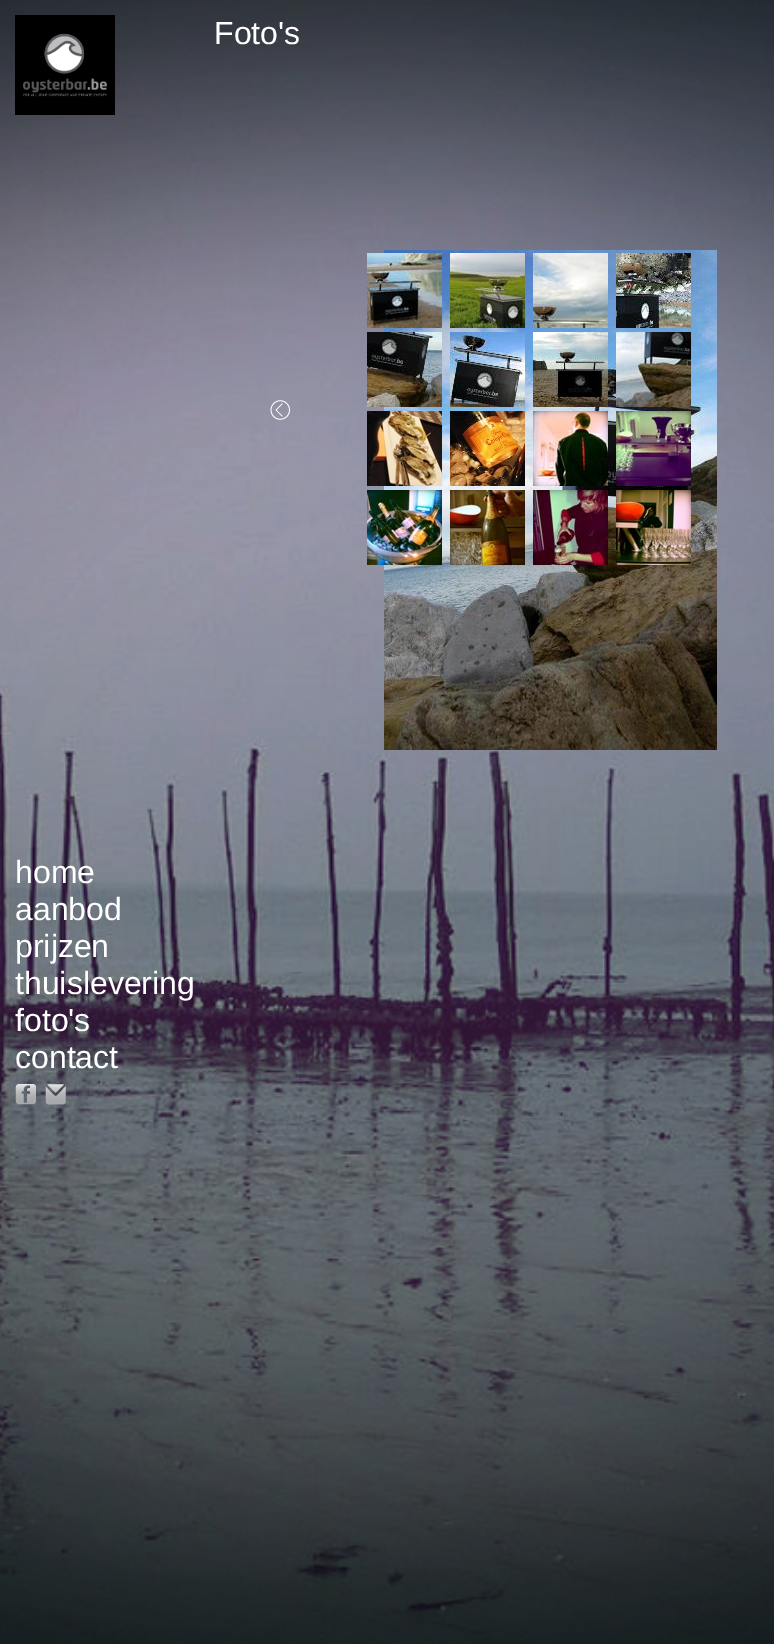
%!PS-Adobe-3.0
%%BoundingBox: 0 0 774 1644
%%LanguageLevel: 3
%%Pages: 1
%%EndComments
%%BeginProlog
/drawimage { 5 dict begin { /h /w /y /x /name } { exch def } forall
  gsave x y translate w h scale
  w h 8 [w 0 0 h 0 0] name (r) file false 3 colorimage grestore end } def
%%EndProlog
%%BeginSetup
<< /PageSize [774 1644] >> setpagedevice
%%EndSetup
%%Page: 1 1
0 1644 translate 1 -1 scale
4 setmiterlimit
1 setgray
0 0 774 1644 rectfill
(images/1.raw) 0 0 774 1644 drawimage
(images/2.raw) 15 15 100 100 drawimage
(images/3.raw) 384 250 333 500 drawimage
(images/4.raw) 270 400 20 20 drawimage
(images/5.raw) 367 253 75 75 drawimage
(images/6.raw) 450 253 75 75 drawimage
(images/7.raw) 533 253 75 75 drawimage
(images/8.raw) 616 253 75 75 drawimage
(images/9.raw) 367 332 75 75 drawimage
(images/10.raw) 450 332 75 75 drawimage
(images/11.raw) 533 332 75 75 drawimage
(images/12.raw) 616 332 75 75 drawimage
(images/13.raw) 367 411 75 75 drawimage
(images/14.raw) 450 411 75 75 drawimage
(images/15.raw) 533 411 75 75 drawimage
(images/16.raw) 616 411 75 75 drawimage
(images/17.raw) 367 490 75 75 drawimage
(images/18.raw) 450 490 75 75 drawimage
(images/19.raw) 533 490 75 75 drawimage
(images/20.raw) 616 490 75 75 drawimage
(images/21.raw) 15 1084 21 21 drawimage
(images/22.raw) 45 1084 21 21 drawimage
/LiberationSans-Regular [32 0 0 -32 0 0] selectfont
214 44 moveto (Foto's) show
15 883 moveto (home) show
15 920 moveto (aanbod) show
15 957 moveto (prijzen) show
15 994 moveto (thuislevering) show
15 1031 moveto (foto's) show
15 1068 moveto (contact) show
showpage
%%EOF
